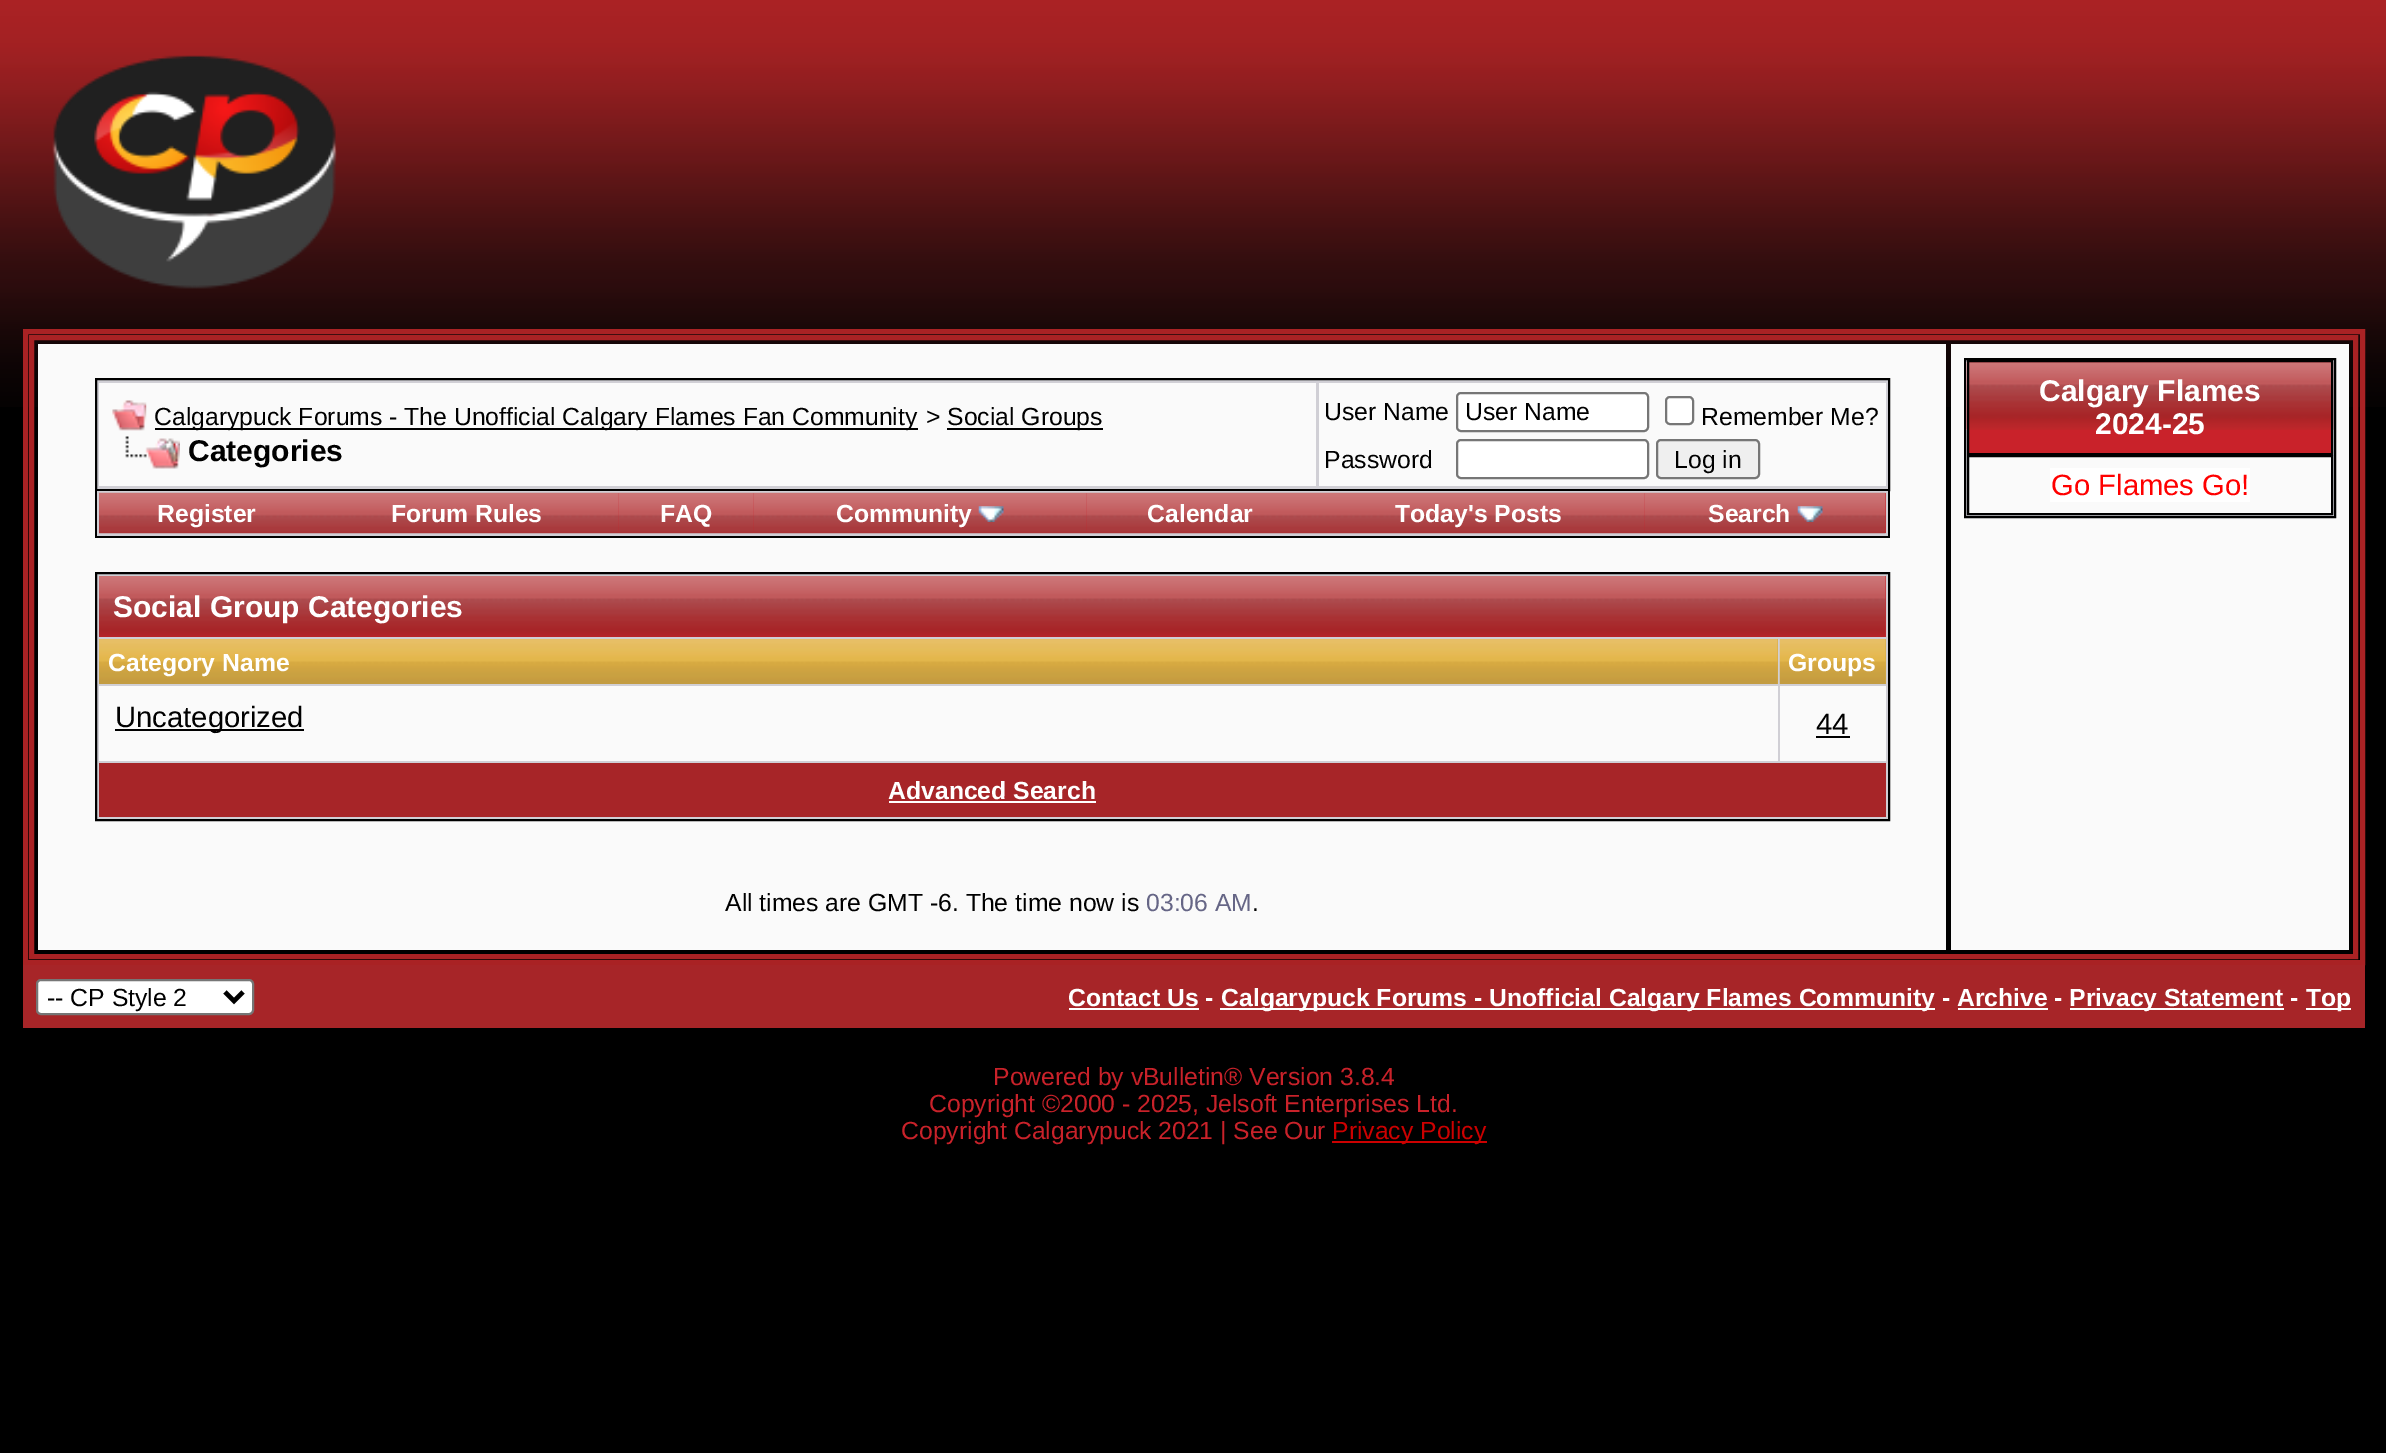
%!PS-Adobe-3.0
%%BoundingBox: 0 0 2386 1453
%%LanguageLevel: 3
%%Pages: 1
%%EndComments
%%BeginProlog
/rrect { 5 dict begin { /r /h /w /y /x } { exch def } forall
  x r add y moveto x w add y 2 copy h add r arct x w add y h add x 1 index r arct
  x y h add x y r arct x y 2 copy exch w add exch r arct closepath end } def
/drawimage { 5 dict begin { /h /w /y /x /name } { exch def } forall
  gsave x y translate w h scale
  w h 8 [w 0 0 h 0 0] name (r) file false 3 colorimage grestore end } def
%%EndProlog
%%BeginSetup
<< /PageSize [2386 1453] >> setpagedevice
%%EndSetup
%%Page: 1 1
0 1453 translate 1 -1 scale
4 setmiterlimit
0 setgray
0 0 2386 1453 rectfill
(images/1.raw) 0 0 2386 407 drawimage
(images/2.raw) 52 55 285 234 drawimage
0.663 0.133 0.141 setrgbcolor
5 setlinewidth
25.5 331.5 2337 631 rectstroke
31.5 337.5 2324 619 rectstroke
0.98 setgray
38 344 1908 606 rectfill
0.816 0.812 0.835 setrgbcolor
newpath 96 379 moveto 1889 379 lineto 1889 490 lineto 96 490 lineto closepath gsave fill grestore
0 setgray
2 setlinewidth
stroke
0.98 setgray
99 383 1217 103 rectfill
(images/3.raw) 112 400 35 31 drawimage
0 setgray
155 428 763 2 rectfill
947 428 156 2 rectfill
(images/4.raw) 125 436 55 33 drawimage
0.98 setgray
1319 383 567 103 rectfill
1 setgray
1457 393 191 38 4 rrect gsave fill grestore
0.463 setgray
stroke
1 setgray
1666 397 27 27 4 rrect gsave fill grestore
0.463 setgray
stroke
1 setgray
1457 440 191 38 4 rrect gsave fill grestore
0.463 setgray
stroke
0.937 setgray
1657 440 102 38 4 rrect gsave fill grestore
0.463 setgray
stroke
0.816 0.812 0.835 setrgbcolor
97 491 1791 45 rectfill
0 setgray
1888 491 2 47 rectfill
95 536 1795 2 rectfill
95 491 2 47 rectfill
(images/5.raw) 99 492 216 42 drawimage
(images/6.raw) 315 492 304 42 drawimage
(images/7.raw) 618 492 136 42 drawimage
(images/8.raw) 753 492 334 42 drawimage
(images/9.raw) 978 506 26 16 drawimage
(images/10.raw) 1086 492 228 42 drawimage
(images/11.raw) 1314 492 331 42 drawimage
0.788 0.133 0.165 setrgbcolor
1885 493 1 40 rectfill
(images/12.raw) 1644 492 242 42 drawimage
(images/13.raw) 1797 506 26 16 drawimage
0.816 0.812 0.835 setrgbcolor
newpath 96 573 moveto 1889 573 lineto 1889 820 lineto 96 820 lineto closepath gsave fill grestore
0 setgray
stroke
0.788 0.133 0.165 setrgbcolor
99 576 1787 61 rectfill
(images/14.raw) 99 576 1787 61 drawimage
0.839 0.663 0.255 setrgbcolor
1777 639 1 45 rectfill
(images/15.raw) 99 639 1679 45 drawimage
1885 639 1 45 rectfill
(images/16.raw) 1779 639 107 45 drawimage
0.98 setgray
99 686 1679 75 rectfill
0 setgray
115 729 189 2 rectfill
0.98 setgray
1780 686 106 75 rectfill
0 setgray
1816 736 34 2 rectfill
0.655 0.145 0.157 setrgbcolor
99 763 1787 54 rectfill
1 setgray
889 801 207 2 rectfill
0.98 setgray
1951 344 398 606 rectfill
0.816 0.812 0.835 setrgbcolor
newpath 1965 359 moveto 2335 359 lineto 2335 517 lineto 1965 517 lineto closepath gsave fill grestore
0 setgray
stroke
0.788 0.133 0.165 setrgbcolor
1969 362 362 91 rectfill
(images/17.raw) 1966 362 368 68 drawimage
0 setgray
1968 361 364 93 rectstroke
0.98 setgray
newpath 1968 456 moveto 2332 456 lineto 2332 514 lineto 1968 514 lineto closepath gsave fill grestore
0 setgray
stroke
1 setgray
2050 468 200 34 rectfill
0.655 0.145 0.157 setrgbcolor
23 965 2342 63 rectfill
1 setgray
37 980 216 34 4 rrect gsave fill grestore
0.463 setgray
stroke
0 setgray
4.5 setlinewidth
newpath 225 992 moveto 234 1001 lineto 243 992 lineto stroke
1 setgray
1069 1008 130 2 rectfill
1220 1008 715 2 rectfill
1958 1008 90 2 rectfill
2070 1008 214 2 rectfill
2306 1008 45 2 rectfill
0.8 0 0 setrgbcolor
1332 1141 155 2 rectfill
/LiberationSans-Regular [24.75 0 0 -24.75 0 0] selectfont
0 setgray
154 425 moveto (Calgarypuck Forums - The Unofficial Calgary Flames Fan Community) show
926 425 moveto (>) show
947 425 moveto (Social Groups) show
/LiberationSans-Bold [30 0 0 -30 0 0] selectfont
188 461 moveto (Categories) show
/LiberationSans-Regular [24.75 0 0 -24.75 0 0] selectfont
1324 420 moveto (User Name) show
1465 420 moveto (User Name) show
1701 425 moveto (Remember Me?) show
1324 468 moveto (Password) show
1674 468 moveto (Log in) show
/LiberationSans-Bold [24.75 0 0 -24.75 0 0] selectfont
1 setgray
157 522 moveto (Register) show
391 522 moveto (Forum Rules) show
660 522 moveto (FAQ) show
836 522 moveto (Community) show
1147 522 moveto (Calendar) show
1395 522 moveto (Today's Posts) show
1708 522 moveto (Search) show
/LiberationSans-Bold [30 0 0 -30 0 0] selectfont
113 617 moveto (Social Group Categories) show
/LiberationSans-Bold [24.75 0 0 -24.75 0 0] selectfont
108 671 moveto (Category Name) show
1788 671 moveto (Groups) show
/LiberationSans-Regular [29.25 0 0 -29.25 0 0] selectfont
0 setgray
115 727 moveto (Uncategorized) show
1816 734 moveto (44) show
/LiberationSans-Bold [24.75 0 0 -24.75 0 0] selectfont
1 setgray
888 799 moveto (Advanced Search) show
/LiberationSans-Regular [24.75 0 0 -24.75 0 0] selectfont
0 setgray
725 911 moveto (All times are GMT -6. The time now is) show
0.4 0.4 0.525 setrgbcolor
1146 911 moveto (03:06 AM) show
0 setgray
1252 911 moveto (.) show
/LiberationSans-Bold [30 0 0 -30 0 0] selectfont
1 setgray
2039 401 moveto (Calgary Flames) show
2095 434 moveto (2024-25) show
/LiberationSans-Regular [29.25 0 0 -29.25 0 0] selectfont
1 0 0 setrgbcolor
2051 495 moveto (Go Flames Go!) show
/LiberationSans-Regular [24.75 0 0 -24.75 0 0] selectfont
0 setgray
47 1006 moveto (-- CP Style 2) show
/LiberationSans-Bold [24.75 0 0 -24.75 0 0] selectfont
1 setgray
1068 1006 moveto (Contact Us -) show
1221 1006 moveto (Calgarypuck Forums - Unofficial Calgary Flames Community - Archive -) show
2069 1006 moveto (Privacy Statement -) show
2306 1006 moveto (Top) show
/LiberationSans-Regular [24.75 0 0 -24.75 0 0] selectfont
0.788 0.133 0.165 setrgbcolor
993 1085 moveto (Powered by vBulletin® Version 3.8.4) show
929 1112 moveto (Copyright ©2000 - 2025, Jelsoft Enterprises Ltd.) show
901 1139 moveto (Copyright Calgarypuck 2021 | See Our) show
0.8 0 0 setrgbcolor
1332 1139 moveto (Privacy Policy) show
showpage
%%EOF
